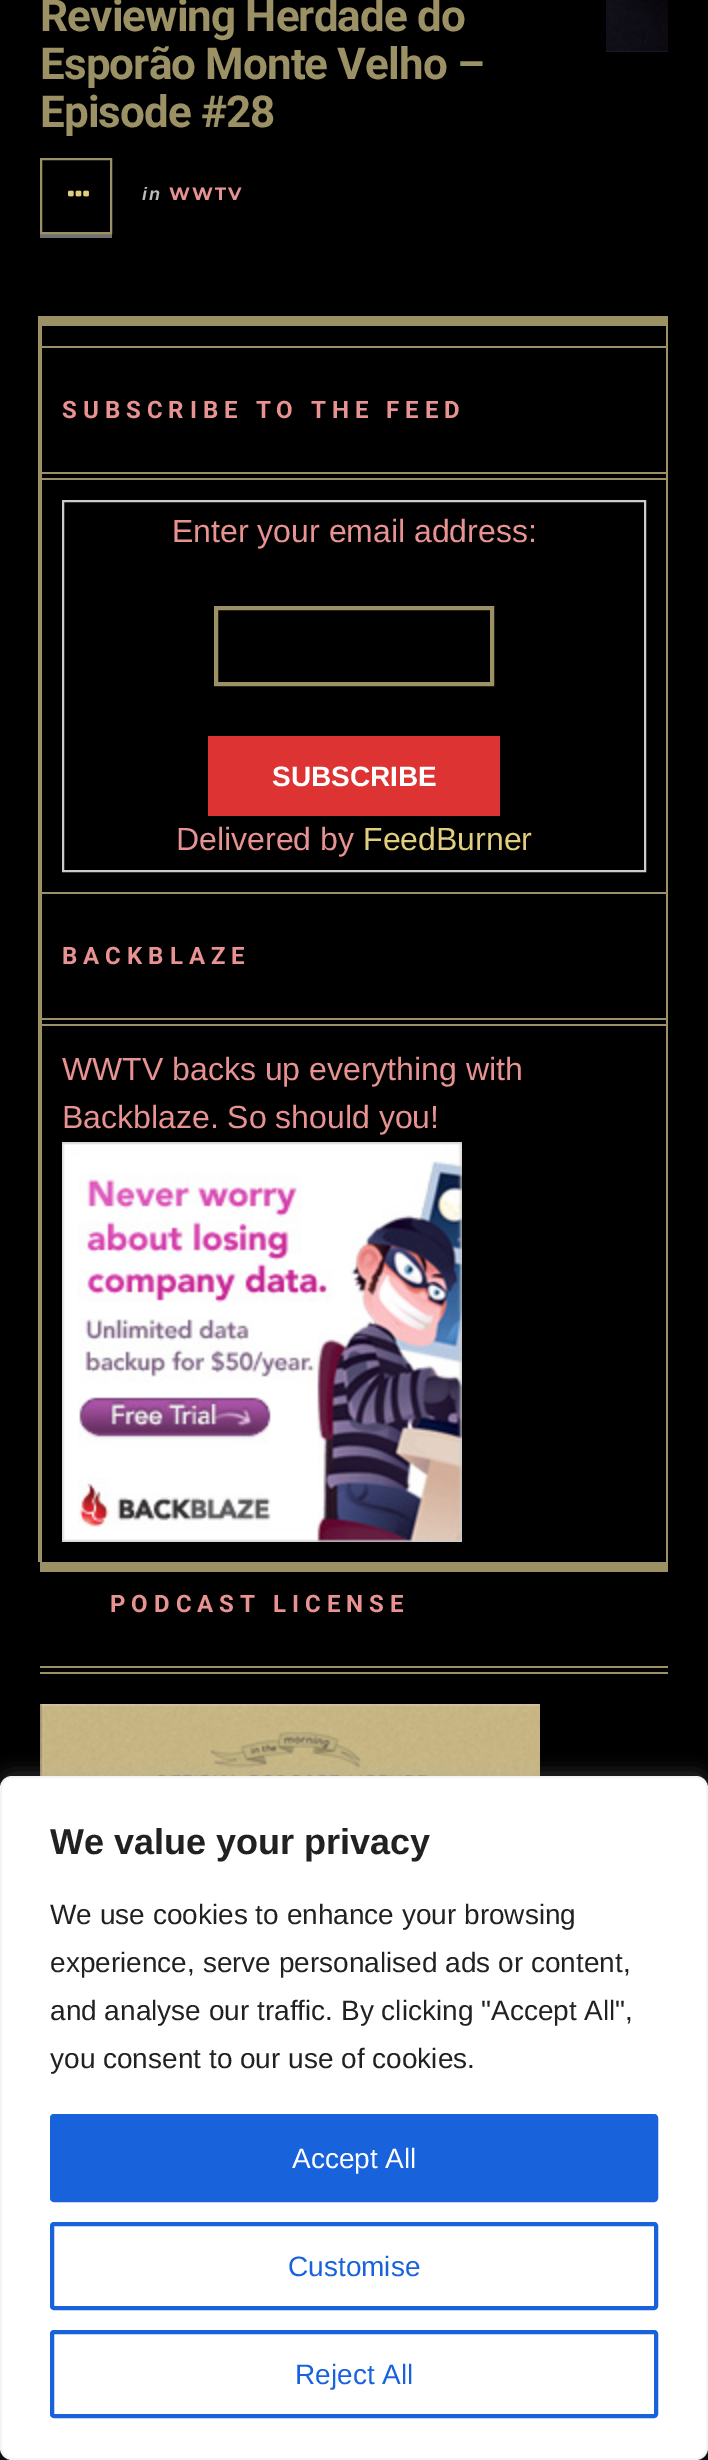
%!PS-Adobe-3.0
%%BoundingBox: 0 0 708 2460
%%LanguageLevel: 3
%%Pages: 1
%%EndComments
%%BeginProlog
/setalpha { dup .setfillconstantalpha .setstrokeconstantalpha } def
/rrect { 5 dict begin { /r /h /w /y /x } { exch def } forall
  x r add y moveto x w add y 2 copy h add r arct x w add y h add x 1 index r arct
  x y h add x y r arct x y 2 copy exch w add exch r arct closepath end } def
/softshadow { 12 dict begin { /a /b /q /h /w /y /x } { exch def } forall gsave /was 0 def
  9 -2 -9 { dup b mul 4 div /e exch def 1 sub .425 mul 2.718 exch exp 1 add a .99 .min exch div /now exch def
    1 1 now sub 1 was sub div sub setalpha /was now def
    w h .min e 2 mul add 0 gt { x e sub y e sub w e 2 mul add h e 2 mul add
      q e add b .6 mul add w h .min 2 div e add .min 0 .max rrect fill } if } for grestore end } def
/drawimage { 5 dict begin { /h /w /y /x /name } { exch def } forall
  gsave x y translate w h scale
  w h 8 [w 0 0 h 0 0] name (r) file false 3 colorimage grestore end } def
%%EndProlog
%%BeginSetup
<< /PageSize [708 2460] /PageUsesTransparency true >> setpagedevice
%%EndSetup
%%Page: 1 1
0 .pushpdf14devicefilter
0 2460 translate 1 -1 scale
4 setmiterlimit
0 setgray
0 0 708 2460 rectfill
0.608 0.569 0.396 setrgbcolor
40 1562 628 10 rectfill
0.443 setgray
40 234 72 4 rectfill
0.608 0.569 0.396 setrgbcolor
2 setlinewidth
41 159 70 74 rectstroke
(images/1.raw) 68 190 21 7 drawimage
(images/2.raw) 606 0 62 52 drawimage
38 316 4 1246 rectfill
42 316 624 10 rectfill
666 316 2 1246 rectfill
42 346 624 2 rectfill
42 472 624 2 rectfill
42 478 624 2 rectfill
0.8 setgray
63 501 582 370 rectstroke
0.608 0.569 0.396 setrgbcolor
4 setlinewidth
216 608 276 76 rectstroke
0.867 0.2 0.2 setrgbcolor
208 736 292 80 rectfill
0.608 0.569 0.396 setrgbcolor
42 892 624 2 rectfill
42 1018 624 2 rectfill
42 1024 624 2 rectfill
(images/3.raw) 62 1142 400 400 drawimage
40 1666 628 2 rectfill
40 1672 628 2 rectfill
(images/4.raw) 40 1704 500 72 drawimage
0.675 0.671 0.671 setrgbcolor
0 1774 708 684 12 10 0.3 softshadow
1 setgray
1 1777 706 682 11 rrect gsave fill grestore
0.957 setgray
2 setlinewidth
stroke
0.094 0.388 0.863 setrgbcolor
52 2116 604 84 2 rrect gsave fill grestore
4 setlinewidth
stroke
52 2224 604 84 2 rrect stroke
52 2332 604 84 2 rrect stroke
/Roboto-Bold [44 0 0 -44 0 0] selectfont
0.608 0.569 0.396 setrgbcolor
40 31 moveto -0.9 0 (Reviewing Herdade do) ashow
40 79 moveto -0.9 0 (Esporão Monte Velho –) ashow
40 127 moveto -0.9 0 (Episode #28) ashow
/LiberationSans-BoldItalic [18 0 0 -18 0 0] selectfont
0.733 setgray
142 200 moveto 2 0 (in) ashow
/Montserrat-Bold [18 0 0 -18 0 0] selectfont
0.91 0.573 0.573 setrgbcolor
169 200 moveto 2 0 (WWTV) ashow
/Roboto-Bold [24 0 0 -24 0 0] selectfont
62 418 moveto 6 0 (SUBSCRIBE TO THE FEED) ashow
/LiberationSans-Regular [32 0 0 -32 0 0] selectfont
172 542 moveto (Enter your email address:) show
/LiberationSans-Bold [28 0 0 -28 0 0] selectfont
1 setgray
272 786 moveto (SUBSCRIBE) show
/LiberationSans-Regular [32 0 0 -32 0 0] selectfont
0.91 0.573 0.573 setrgbcolor
176 850 moveto (Delivered by) show
0.882 0.812 0.498 setrgbcolor
363 850 moveto (FeedBurner) show
/Roboto-Bold [24 0 0 -24 0 0] selectfont
0.91 0.573 0.573 setrgbcolor
62 964 moveto 6 0 (BACKBLAZE) ashow
/LiberationSans-Regular [32 0 0 -32 0 0] selectfont
62 1080 moveto (WWTV backs up everything with) show
62 1128 moveto (Backblaze. So should you!) show
/Roboto-Bold [24 0 0 -24 0 0] selectfont
110 1612 moveto 6 0 (PODCAST LICENSE) ashow
/LiberationSans-Bold [36 0 0 -36 0 0] selectfont
0.129 setgray
50 1854 moveto (We value your privacy) show
/LiberationSans-Regular [28 0 0 -28 0 0] selectfont
50 1924 moveto (We use cookies to enhance your browsing) show
50 1972 moveto (experience, serve personalised ads or content,) show
50 2020 moveto (and analyse our traffic. By clicking "Accept All",) show
50 2068 moveto (you consent to our use of cookies.) show
1 setgray
292 2168 moveto (Accept All) show
0.094 0.388 0.863 setrgbcolor
288 2276 moveto (Customise) show
295 2384 moveto (Reject All) show
.poppdf14devicefilter showpage
%%EOF
